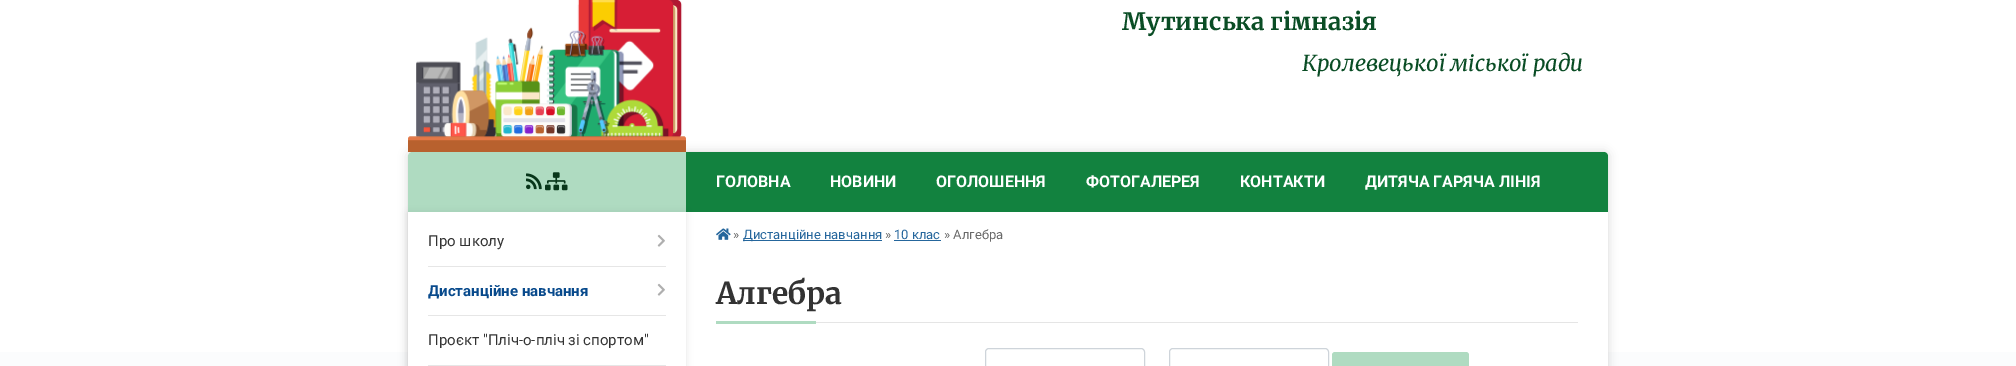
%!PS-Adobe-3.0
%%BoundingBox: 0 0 2016 366
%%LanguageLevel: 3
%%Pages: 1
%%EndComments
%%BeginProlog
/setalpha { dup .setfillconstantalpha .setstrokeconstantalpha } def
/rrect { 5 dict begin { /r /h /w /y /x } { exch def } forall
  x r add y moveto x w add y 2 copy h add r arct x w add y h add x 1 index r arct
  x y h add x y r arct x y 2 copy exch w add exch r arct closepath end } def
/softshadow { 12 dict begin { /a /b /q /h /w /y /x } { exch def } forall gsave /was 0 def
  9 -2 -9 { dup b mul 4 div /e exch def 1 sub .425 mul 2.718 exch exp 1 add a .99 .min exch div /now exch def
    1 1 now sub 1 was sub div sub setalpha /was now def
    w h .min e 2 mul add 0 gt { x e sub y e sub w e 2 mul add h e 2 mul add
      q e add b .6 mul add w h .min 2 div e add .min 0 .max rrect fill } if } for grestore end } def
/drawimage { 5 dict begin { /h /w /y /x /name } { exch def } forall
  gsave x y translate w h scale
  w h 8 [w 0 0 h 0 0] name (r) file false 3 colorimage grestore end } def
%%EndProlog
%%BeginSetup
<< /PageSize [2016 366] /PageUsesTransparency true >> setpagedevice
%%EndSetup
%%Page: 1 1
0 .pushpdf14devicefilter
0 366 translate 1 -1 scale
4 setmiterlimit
1 setgray
0 0 2016 366 rectfill
gsave newpath 0 352 moveto 2016 352 lineto 2016 366 lineto 0 366 lineto closepath clip newpath
<< /ShadingType 2 /ColorSpace /DeviceRGB /Coords [1008 -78 1008 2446] /Extend [true true] /Function << /FunctionType 3 /Domain [0 1] /Functions [<< /FunctionType 2 /Domain [0 1] /C0 [1 1 1] /C1 [1 1 1] /N 1 >> << /FunctionType 2 /Domain [0 1] /C0 [1 1 1] /C1 [0.847 0.882 0.902] /N 1 >> << /FunctionType 2 /Domain [0 1] /C0 [0.847 0.882 0.902] /C1 [0.847 0.882 0.902] /N 1 >>] /Bounds [0.16 0.32] /Encode [0 1 0 1 0 1] >> >> shfill grestore
0 setgray
408 152 1200 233 4 5 0.15 softshadow
1 setgray
408 152 1200 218 4 rrect fill
(images/1.raw) 408 0 278 152 drawimage
0.686 0.859 0.757 setrgbcolor
newpath 412 152 moveto 686 152 lineto 686 212 lineto 408 212 lineto 408 156 lineto 408 154 410 152 412 152 curveto closepath fill
(images/2.raw) 526 173 16 17 drawimage
(images/3.raw) 545 172 23 19 drawimage
0.071 0.51 0.247 setrgbcolor
newpath 686 152 moveto 1604 152 lineto 1606 152 1608 154 1608 156 curveto 1608 212 lineto 686 212 lineto closepath fill
gsave
newpath 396 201 moveto 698 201 lineto 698 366 lineto 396 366 lineto closepath 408 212 moveto 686 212 lineto 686 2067 lineto 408 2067 lineto closepath eoclip newpath
0 setgray
408 213 278 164 0 3.5 0.1 softshadow
grestore
0.902 setgray
428 266 238 1 rectfill
(images/4.raw) 657 234 8 13 drawimage
428 315 238 1 rectfill
(images/4.raw) 657 283 8 13 drawimage
428 365 238 1 rectfill
(images/5.raw) 716 228 15 12 drawimage
0.145 0.4 0.612 setrgbcolor
743 240 139 1 rectfill
894 240 47 1 rectfill
0.898 setgray
816 322 762 1 rectfill
0.686 0.859 0.757 setrgbcolor
716 321 100 3 rectfill
0.808 0.831 0.855 setrgbcolor
985.5 348.5 159 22 3.5 rrect stroke
1169.5 348.5 159 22 3.5 rrect stroke
0.686 0.859 0.757 setrgbcolor
1332 352 137 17 3 rrect fill
/Merriweather-Light [24 0 0 -24 0 0] selectfont
0.039 0.302 0.145 setrgbcolor
1122 30 moveto (Мутинська гімназія) show
/Merriweather-LightItalic [22 0 0 -22 0 0] selectfont
1302 71 moveto (Кролевецької міської ради) show
/Roboto-Regular [15 0 0 -15 0 0] selectfont
0.2 setgray
428 246 moveto (Про школу) show
/Roboto-Bold [15 0 0 -15 0 0] selectfont
0.031 0.29 0.549 setrgbcolor
428 296 moveto (Дистанційне навчання) show
/Roboto-Regular [15 0 0 -15 0 0] selectfont
0.2 setgray
428 345 moveto (Проєкт "Пліч-о-пліч зі спортом") show
/Roboto-Bold [16 0 0 -16 0 0] selectfont
1 setgray
716 187 moveto (ГОЛОВНА) show
830 187 moveto (НОВИНИ) show
936 187 moveto (ОГОЛОШЕННЯ) show
1086 187 moveto (ФОТОГАЛЕРЕЯ) show
1240 187 moveto (КОНТАКТИ) show
1365 187 moveto (ДИТЯЧА ГАРЯЧА ЛІНІЯ) show
/Roboto-Regular [13 0 0 -13 0 0] selectfont
0.412 setgray
733 239 moveto (») show
0.145 0.4 0.612 setrgbcolor
743 239 moveto (Дистанційне навчання) show
0.412 setgray
885 239 moveto (») show
0.145 0.4 0.612 setrgbcolor
894 239 moveto (10 клас) show
0.412 setgray
944 239 moveto (» Алгебра) show
/Merriweather-Light [30 0 0 -30 0 0] selectfont
0.2 setgray
716 304 moveto (Алгебра) show
.poppdf14devicefilter showpage
%%EOF
